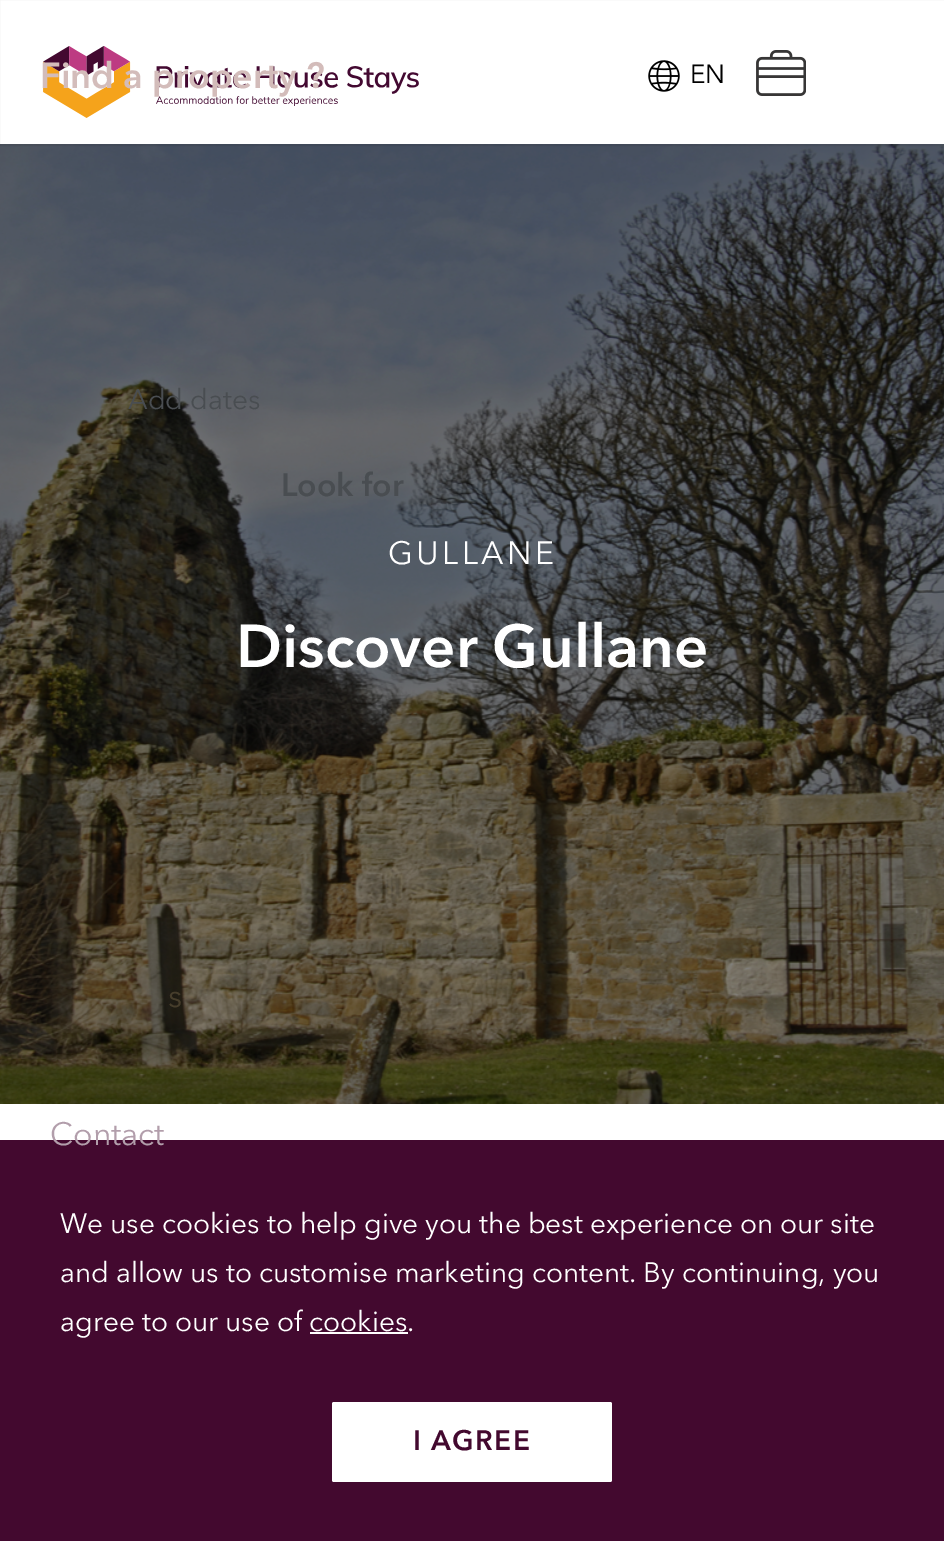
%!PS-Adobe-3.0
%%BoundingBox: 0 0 944 1541
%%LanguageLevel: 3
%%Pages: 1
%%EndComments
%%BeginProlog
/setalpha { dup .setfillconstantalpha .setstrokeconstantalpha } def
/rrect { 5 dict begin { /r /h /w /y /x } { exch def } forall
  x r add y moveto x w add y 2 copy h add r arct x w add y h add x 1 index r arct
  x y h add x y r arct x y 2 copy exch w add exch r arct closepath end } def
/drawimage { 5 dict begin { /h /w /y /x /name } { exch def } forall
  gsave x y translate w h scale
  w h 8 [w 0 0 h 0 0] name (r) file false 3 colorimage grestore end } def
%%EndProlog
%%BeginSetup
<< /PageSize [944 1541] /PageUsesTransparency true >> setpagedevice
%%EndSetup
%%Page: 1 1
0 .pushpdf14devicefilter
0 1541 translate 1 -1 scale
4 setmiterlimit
1 setgray
0 0 944 1541 rectfill
0 setgray
0 144 944 960 rectfill
(images/4.raw) 0 144 944 960 drawimage
0.07 setalpha
2 setlinewidth
-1 -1 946 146 rectstroke
1 setalpha
(images/1.raw) 43 46 376 72 drawimage
(images/2.raw) 648 60 32 32 drawimage
(images/3.raw) 756 50 50 46 drawimage
0.263 0.035 0.184 setrgbcolor
0 1140 944 401 rectfill
1 setgray
310 1332 98 2 rectfill
332 1402 280 80 2 rrect fill
/AvenirNext-Bold [36 0 0 -36 0 0] selectfont
0.827 0.737 0.729 setrgbcolor
40 88 moveto (Find a property ?) show
/AvenirNext-Regular [28 0 0 -28 0 0] selectfont
0.286 0.302 0.318 setrgbcolor
128 409 moveto (Add dates) show
/AvenirNext-Regular [26 0 0 -26 0 0] selectfont
0 setgray
690 83 moveto (EN) show
/AvenirNext-Bold [32 0 0 -32 0 0] selectfont
0.286 0.302 0.318 setrgbcolor
281 496 moveto (Look for) show
/AvenirNext-Regular [32 0 0 -32 0 0] selectfont
0.275 0.239 0.169 setrgbcolor
168 1007 moveto (s) show
0.698 0.62 0.671 setrgbcolor
50 1145 moveto (Contact) show
1 setgray
388 564 moveto 3.25 0 (GULLANE) ashow
/AvenirNext-Bold [60 0 0 -60 0 0] selectfont
236 667 moveto (Discover Gullane) show
/AvenirNext-Regular [28 0 0 -28 0 0] selectfont
60 1233 moveto (We use cookies to help give you the best experience on our site) show
60 1282 moveto (and allow us to customise marketing content. By continuing, you) show
60 1331 moveto (agree to our use of cookies.) show
/AvenirNext-Bold [28 0 0 -28 0 0] selectfont
0.263 0.035 0.184 setrgbcolor
413 1450 moveto 1.5 0 (I AGREE) ashow
.poppdf14devicefilter showpage
%%EOF
